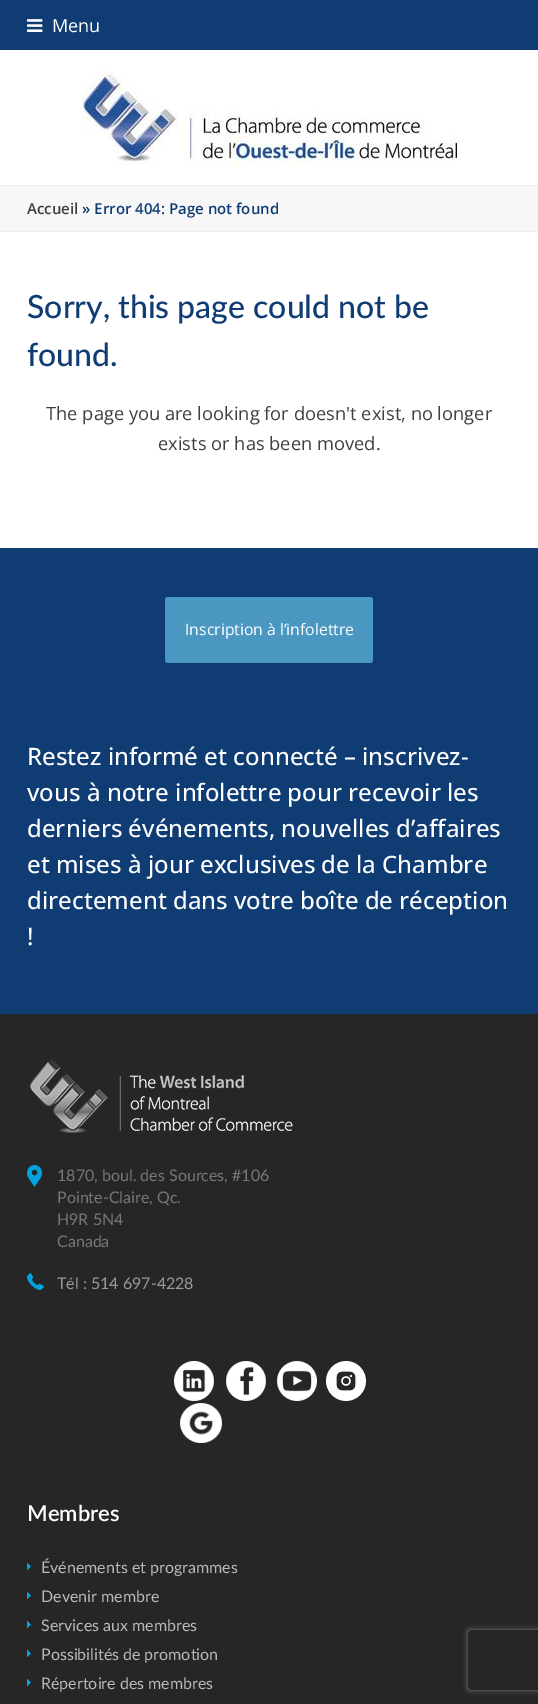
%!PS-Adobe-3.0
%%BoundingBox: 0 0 538 1704
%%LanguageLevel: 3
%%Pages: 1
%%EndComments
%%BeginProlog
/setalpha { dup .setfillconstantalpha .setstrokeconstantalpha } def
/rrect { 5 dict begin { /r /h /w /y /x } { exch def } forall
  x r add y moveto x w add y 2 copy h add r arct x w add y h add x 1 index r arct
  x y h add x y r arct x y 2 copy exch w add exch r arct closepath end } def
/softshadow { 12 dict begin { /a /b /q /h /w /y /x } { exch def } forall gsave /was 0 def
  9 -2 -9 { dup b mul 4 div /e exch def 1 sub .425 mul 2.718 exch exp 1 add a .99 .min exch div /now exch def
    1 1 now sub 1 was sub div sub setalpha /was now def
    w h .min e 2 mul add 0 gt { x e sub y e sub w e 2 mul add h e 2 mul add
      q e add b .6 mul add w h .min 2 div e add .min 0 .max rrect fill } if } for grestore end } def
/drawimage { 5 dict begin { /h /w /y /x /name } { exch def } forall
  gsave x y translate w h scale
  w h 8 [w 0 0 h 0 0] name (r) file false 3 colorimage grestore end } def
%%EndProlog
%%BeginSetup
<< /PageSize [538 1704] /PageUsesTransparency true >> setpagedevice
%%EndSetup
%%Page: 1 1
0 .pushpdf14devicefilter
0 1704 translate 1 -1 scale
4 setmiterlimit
1 setgray
0 0 538 1704 rectfill
0.063 0.235 0.455 setrgbcolor
0 0 538 50 rectfill
(images/1.raw) 27 19 16 13 drawimage
(images/2.raw) 82 71 375 94 drawimage
0.969 setgray
0 186 538 45 rectfill
0.933 setgray
0 185 538 1 rectfill
0 231 538 1 rectfill
0.063 0.235 0.455 setrgbcolor
0 548 538 466 rectfill
0.29 0.592 0.761 setrgbcolor
165 597 208 66 3 rrect fill
0.149 setgray
0 1014 538 690 rectfill
(images/3.raw) 29 1059 264 74 drawimage
(images/4.raw) 27 1165 15 22 drawimage
(images/5.raw) 27 1273 17 17 drawimage
(images/6.raw) 174 1361 40 40 drawimage
(images/7.raw) 226 1361 40 40 drawimage
(images/8.raw) 277 1361 40 40 drawimage
(images/9.raw) 326 1361 40 40 drawimage
(images/10.raw) 180 1403 42 40 drawimage
(images/11.raw) 27 1563 4 7 drawimage
(images/11.raw) 27 1592 4 7 drawimage
(images/11.raw) 27 1621 4 7 drawimage
(images/11.raw) 27 1650 4 7 drawimage
(images/11.raw) 27 1679 4 7 drawimage
gsave
newpath 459 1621 moveto 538 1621 lineto 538 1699 lineto 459 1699 lineto closepath 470 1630 moveto 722 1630 lineto 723 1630 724 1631 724 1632 curveto 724 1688 lineto 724 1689 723 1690 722 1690 curveto 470 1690 lineto 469 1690 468 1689 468 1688 curveto 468 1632 lineto 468 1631 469 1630 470 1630 curveto closepath eoclip newpath
0.502 setgray
468 1630 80 60 2 2.5 1 softshadow
grestore
/OpenSans-Regular [18 0 0 -18 0 0] selectfont
1 setgray
52 32 moveto (Menu) show
/OpenSans-SemiBold [15 0 0 -15 0 0] selectfont
0.247 setgray
27 214 moveto (Accueil) show
0.063 0.235 0.455 setrgbcolor
82 214 moveto (» Error 404: Page not found) show
/Lato-Medium [32 0 0 -32 0 0] selectfont
27 318 moveto (Sorry, this page could not be) show
27 366 moveto (found.) show
/OpenSans-Regular [18.3 0 0 -18.3 0 0] selectfont
0.247 setgray
46 420 moveto (The page you are looking for doesn't exist, no longer) show
158 450 moveto (exists or has been moved.) show
/OpenSans-Regular [15.75 0 0 -15.75 0 0] selectfont
1 setgray
185 635 moveto (Inscription à l’infolettre) show
/OpenSans-Medium [24 0 0 -24 0 0] selectfont
27 765 moveto (Restez informé et connecté – inscrivez-) show
27 801 moveto (vous à notre infolettre pour recevoir les) show
27 837 moveto (derniers événements, nouvelles d’affaires) show
27 873 moveto (et mises à jour exclusives de la Chambre) show
27 909 moveto (directement dans votre boîte de réception) show
27 945 moveto (!) show
/Lato-Regular [16 0 0 -16 0 0] selectfont
0.467 setgray
57 1181 moveto (1870, boul. des Sources, #106) show
57 1203 moveto (Pointe-Claire, Qc.) show
57 1225 moveto (H9R 5N4) show
57 1247 moveto (Canada) show
0.6 setgray
57 1289 moveto (Tél : 514 697-4228) show
/Lato-SemiBold [22 0 0 -22 0 0] selectfont
1 setgray
27 1521 moveto (Membres) show
/Lato-Regular [16 0 0 -16 0 0] selectfont
0.725 setgray
41 1573 moveto (Événements et programmes) show
41 1602 moveto (Devenir membre) show
41 1631 moveto (Services aux membres) show
41 1660 moveto (Possibilités de promotion) show
41 1689 moveto (Répertoire des membres) show
.poppdf14devicefilter showpage
%%EOF
